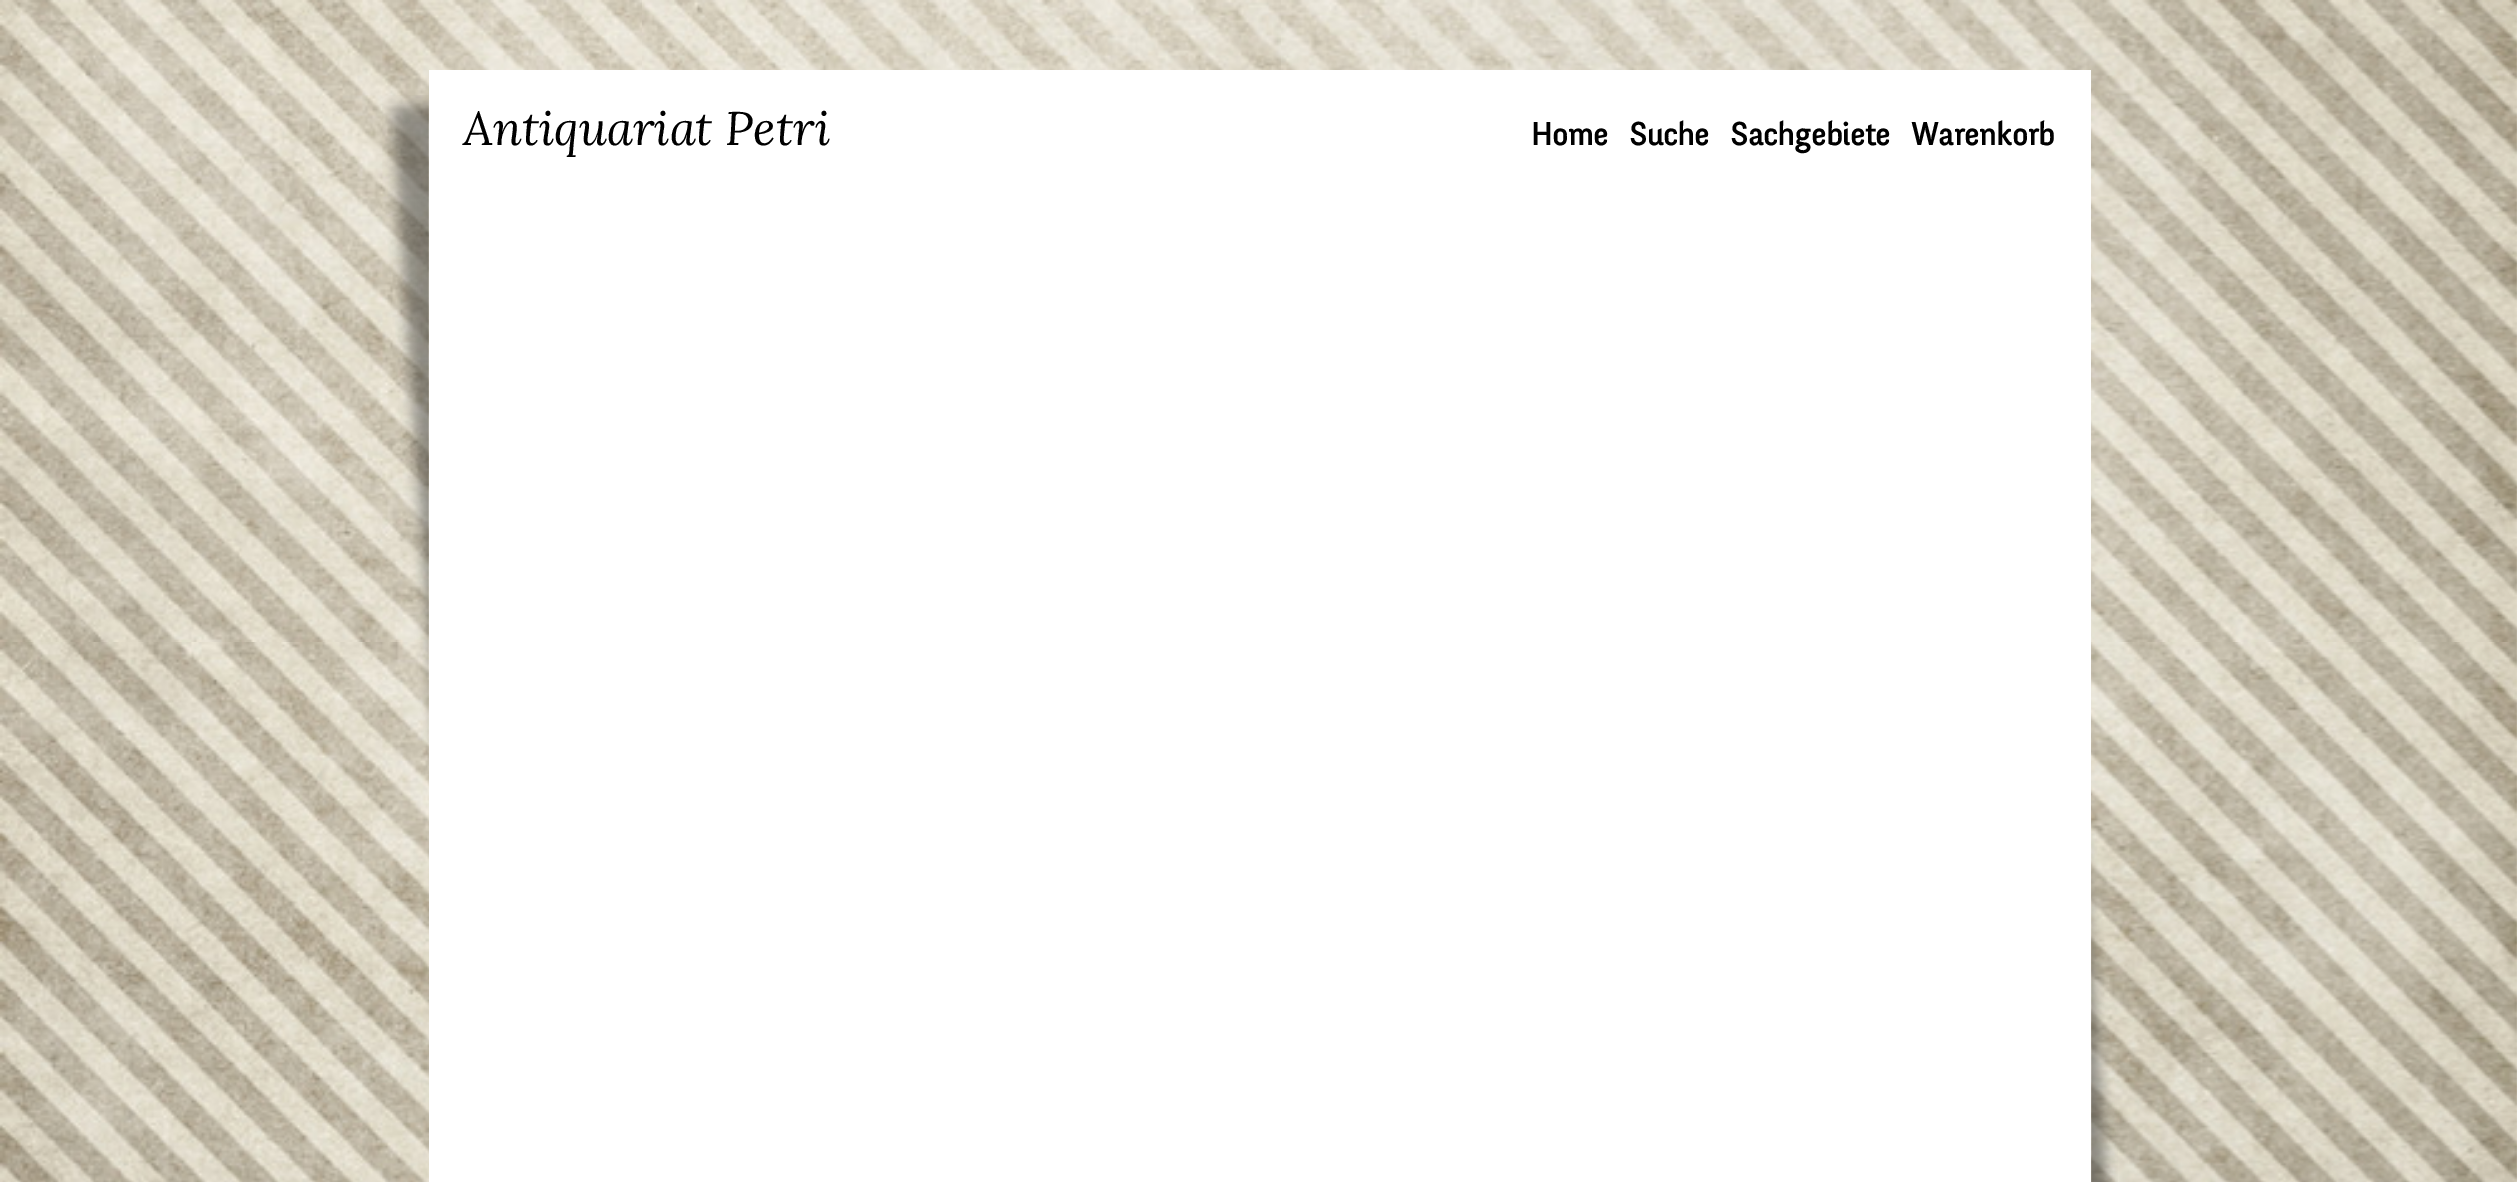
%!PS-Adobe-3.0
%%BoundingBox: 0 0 2517 1182
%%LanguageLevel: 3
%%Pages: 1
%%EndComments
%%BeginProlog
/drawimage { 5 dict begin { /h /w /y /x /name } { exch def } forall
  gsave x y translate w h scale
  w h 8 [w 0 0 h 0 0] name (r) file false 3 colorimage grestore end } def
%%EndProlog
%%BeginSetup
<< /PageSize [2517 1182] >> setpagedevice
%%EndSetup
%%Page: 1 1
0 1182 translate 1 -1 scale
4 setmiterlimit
1 setgray
0 0 2517 1182 rectfill
(images/1.raw) 0 0 2517 1182 drawimage
429 70 1662 1112 rectfill
(images/2.raw) 382 95 47 679 drawimage
(images/3.raw) 2091 818 27 364 drawimage
/Lora-Italic [47.25 0 0 -47.25 0 0] selectfont
0 setgray
463 145 moveto (Antiquariat Petri) show
/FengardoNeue-Bold [31.5 0 0 -31.5 0 0] selectfont
1531 145 moveto (Home) show
1629 145 moveto (Suche) show
1730 145 moveto (Sachgebiete) show
1911 145 moveto (Warenkorb) show
showpage
%%EOF
